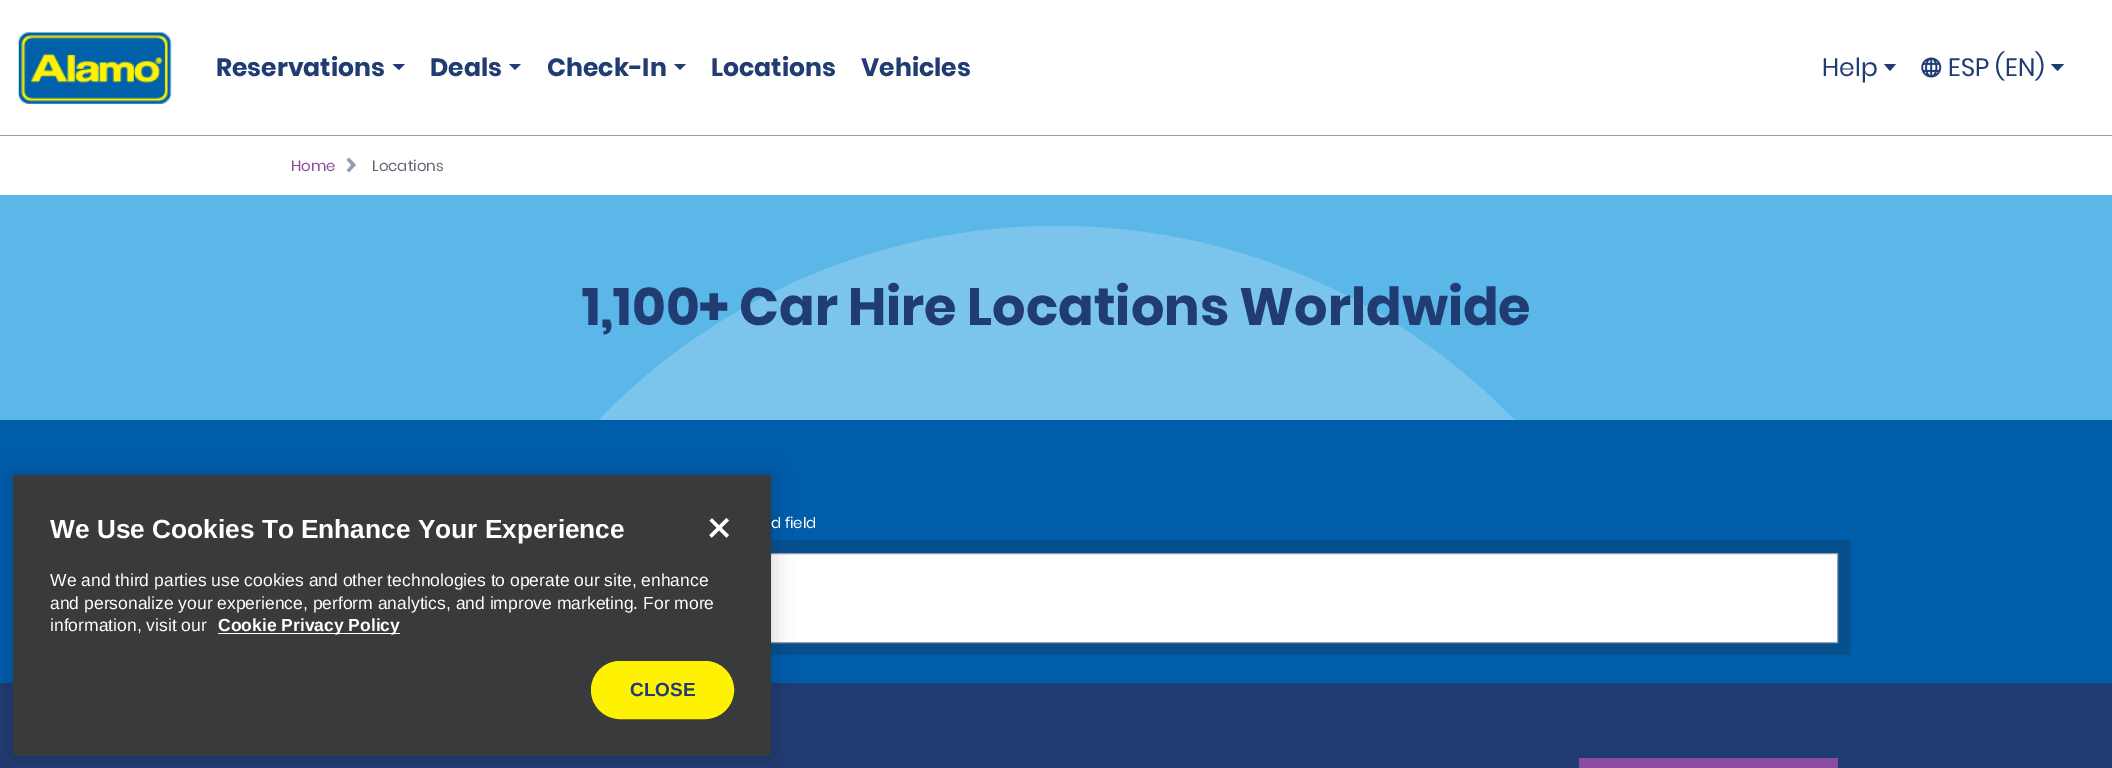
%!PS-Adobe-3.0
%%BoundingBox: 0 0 2112 768
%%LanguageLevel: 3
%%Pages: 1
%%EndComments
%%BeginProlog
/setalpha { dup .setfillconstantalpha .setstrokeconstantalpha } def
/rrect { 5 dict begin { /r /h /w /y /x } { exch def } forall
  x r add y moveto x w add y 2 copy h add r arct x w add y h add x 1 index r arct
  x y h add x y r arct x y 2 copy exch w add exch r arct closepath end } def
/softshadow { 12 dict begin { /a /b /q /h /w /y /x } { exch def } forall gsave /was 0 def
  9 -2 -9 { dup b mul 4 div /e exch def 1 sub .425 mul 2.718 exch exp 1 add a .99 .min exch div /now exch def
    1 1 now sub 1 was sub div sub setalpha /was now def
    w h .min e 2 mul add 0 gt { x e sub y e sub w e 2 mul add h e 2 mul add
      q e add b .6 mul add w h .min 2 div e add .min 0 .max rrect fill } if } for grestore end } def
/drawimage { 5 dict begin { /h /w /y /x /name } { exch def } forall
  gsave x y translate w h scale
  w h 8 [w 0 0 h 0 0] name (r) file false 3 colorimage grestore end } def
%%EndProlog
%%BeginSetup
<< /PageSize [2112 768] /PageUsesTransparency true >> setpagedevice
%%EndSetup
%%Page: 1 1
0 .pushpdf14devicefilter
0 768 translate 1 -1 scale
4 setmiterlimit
1 setgray
0 0 2112 768 rectfill
0.576 0.616 0.718 setrgbcolor
0 135 2112 1 rectfill
(images/1.raw) 18 32 154 72 drawimage
0.129 0.231 0.451 setrgbcolor
newpath 392.5 64 moveto 405 64 lineto 399 70 lineto closepath fill
newpath 509 64 moveto 521 64 lineto 515 70 lineto closepath fill
newpath 674 64 moveto 686 64 lineto 680 70 lineto closepath fill
newpath 1890 71 moveto 1896 64 lineto 1884 64 lineto closepath fill
(images/2.raw) 1921 57 21 21 drawimage
newpath 2057.5 71 moveto 2064 64 lineto 2051 64 lineto closepath fill
(images/3.raw) 346 157 10 16 drawimage
0.353 0.718 0.91 setrgbcolor
0 195 2112 225 rectfill
0.2 setalpha
1 setgray
newpath 1056.5 226 moveto 1408.5 226 1694 511.5 1694 863.5 curveto 1694 420 lineto 419 420 lineto 419 863.5 lineto 419 511.5 704.5 226 1056.5 226 curveto closepath fill
1 setalpha
0 0.365 0.667 setrgbcolor
0 420 2112 263 rectfill
0.027 0.314 0.557 setrgbcolor
13 setlinewidth
269.5 546.5 1574 102 rectstroke
1 setgray
771 554 1066 88 rectfill
0.576 0.616 0.718 setrgbcolor
1 setlinewidth
275.5 553.5 1562 89 rectstroke
0.129 0.231 0.451 setrgbcolor
0 683 2112 85 rectfill
0.549 0.298 0.62 setrgbcolor
1579 758 259 10 rectfill
0 setgray
13 475 758 281 0 11 0.2 softshadow
0.224 0.227 0.231 setrgbcolor
13 475 758 281 rectfill
1 setgray
218 633 182 1 rectfill
(images/4.raw) 709 518 20 20 drawimage
1 0.949 0 setrgbcolor
591.5 661.5 142 57 28.5 rrect gsave fill grestore
stroke
/Poppins-Bold [25 0 0 -25 0 0] selectfont
0.129 0.231 0.451 setrgbcolor
216 76 moveto (Reservations) show
430 76 moveto (Deals) show
547 76 moveto (Check-In) show
711 76 moveto (Locations) show
861 76 moveto (Vehicles) show
/Poppins-Regular [25 0 0 -25 0 0] selectfont
1822 76 moveto (Help) show
1948 76 moveto (ESP \(EN\)) show
/Poppins-Regular [15 0 0 -15 0 0] selectfont
0.549 0.298 0.62 setrgbcolor
291 171 moveto (Home) show
0.38 0.412 0.459 setrgbcolor
372 171 moveto (Locations) show
/Poppins-Bold [52.5 0 0 -52.5 0 0] selectfont
0.129 0.231 0.451 setrgbcolor
582 325 moveto (1,100+ Car Hire Locations Worldwide) show
/Poppins-Regular [15 0 0 -15 0 0] selectfont
1 setgray
771 528 moveto (d field) show
/LiberationSans-Bold [26.25 0 0 -26.25 0 0] selectfont
50 538 moveto (We Use Cookies To Enhance Your Experience) show
/LiberationSans-Regular [17.5 0 0 -17.5 0 0] selectfont
50 586 moveto (We and third parties use cookies and other technologies to operate our site, enhance) show
50 609 moveto (and personalize your experience, perform analytics, and improve marketing. For more) show
50 631 moveto (information, visit our) show
/LiberationSans-Bold [17.5 0 0 -17.5 0 0] selectfont
218 631 moveto (Cookie Privacy Policy) show
/LiberationSans-Bold [19 0 0 -19 0 0] selectfont
0.129 0.231 0.451 setrgbcolor
630 696 moveto (CLOSE) show
.poppdf14devicefilter showpage
%%EOF
